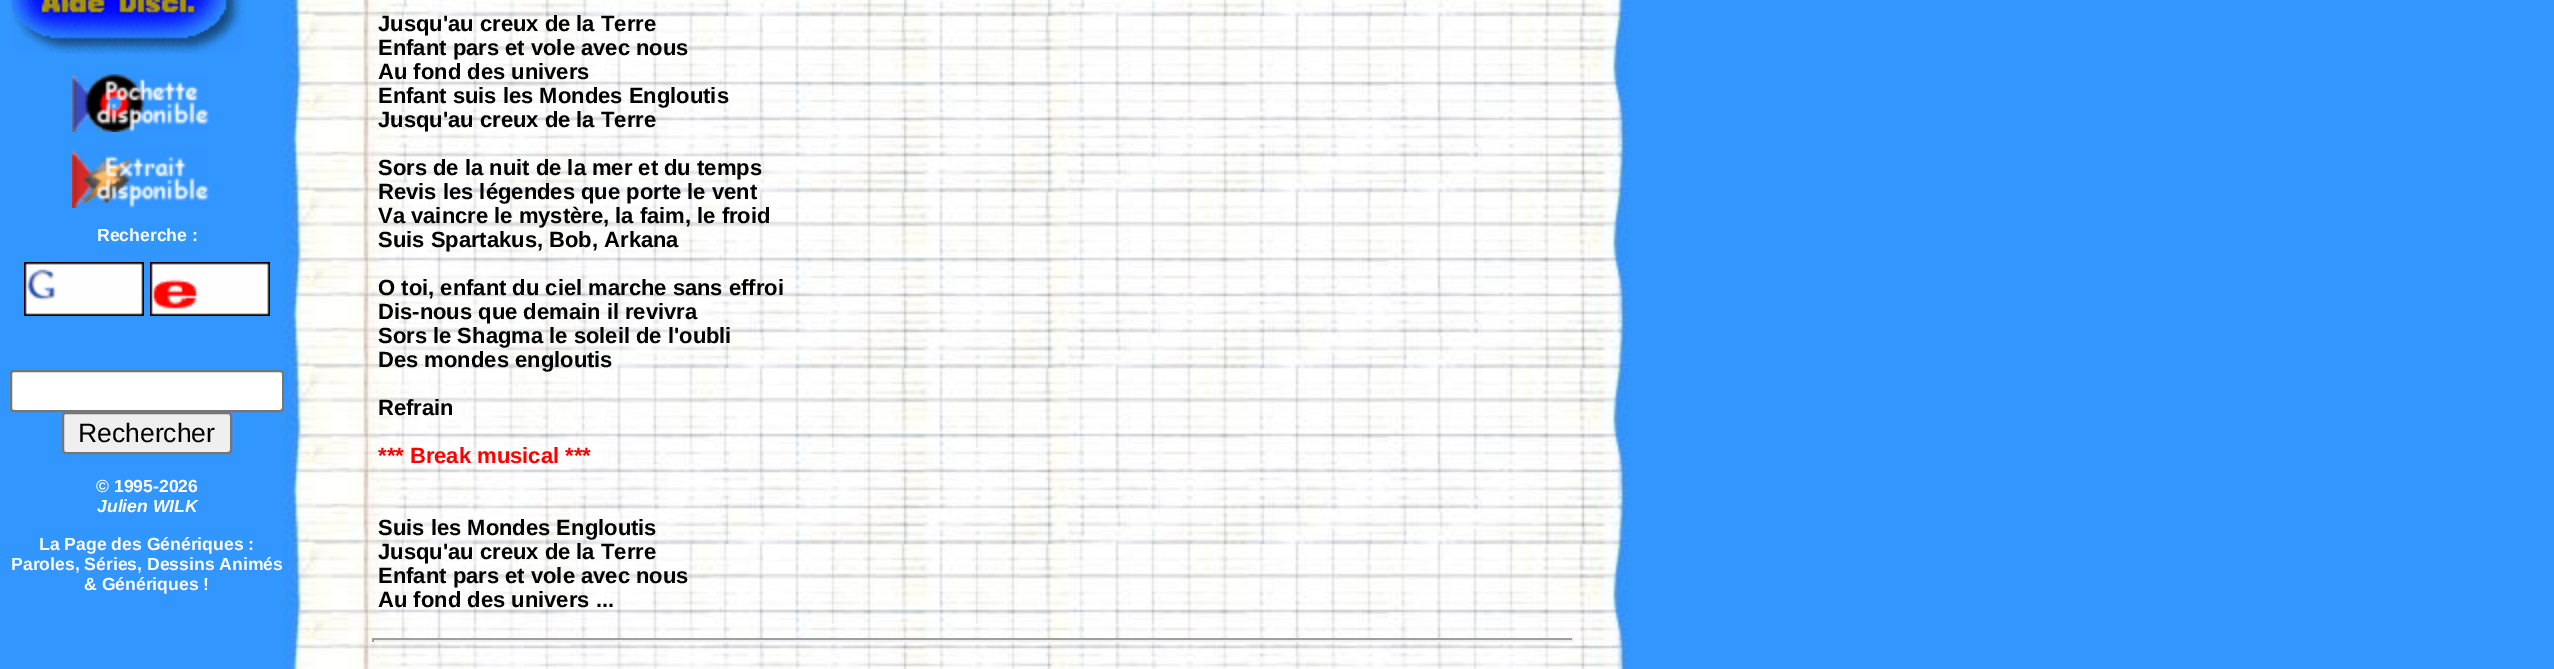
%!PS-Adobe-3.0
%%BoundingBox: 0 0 2554 669
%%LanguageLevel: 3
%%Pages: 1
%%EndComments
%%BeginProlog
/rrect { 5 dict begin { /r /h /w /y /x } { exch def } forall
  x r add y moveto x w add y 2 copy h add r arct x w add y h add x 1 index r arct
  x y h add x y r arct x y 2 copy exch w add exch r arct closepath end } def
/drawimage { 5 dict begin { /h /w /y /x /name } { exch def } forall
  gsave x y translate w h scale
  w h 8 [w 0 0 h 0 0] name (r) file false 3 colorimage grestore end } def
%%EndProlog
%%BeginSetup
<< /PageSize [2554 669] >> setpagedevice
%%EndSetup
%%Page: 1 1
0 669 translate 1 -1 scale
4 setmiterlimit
0.196 0.588 1 setrgbcolor
0 0 2554 669 rectfill
(images/1.raw) 10 0 100 54 drawimage
(images/2.raw) 110 0 136 54 drawimage
(images/3.raw) 72 74 137 58 drawimage
(images/4.raw) 72 150 137 58 drawimage
(images/5.raw) 24 262 120 54 drawimage
(images/6.raw) 150 262 120 54 drawimage
1 setgray
11 371 272 40 3 rrect gsave fill grestore
0.463 setgray
2 setlinewidth
stroke
0.937 setgray
63 413 168 40 3 rrect gsave fill grestore
0.463 setgray
stroke
(images/7.raw) 284 0 1344 669 drawimage
0.624 setgray
372 638 1202 2 rectfill
0.933 setgray
1572 638 2 4 rectfill
372 640 1202 2 rectfill
0.624 setgray
372 638 2 4 rectfill
/LiberationSans-Bold [17.6 0 0 -17.6 0 0] selectfont
1 setgray
97 241 moveto (Recherche :) show
/LiberationSans-Regular [26.5 0 0 -26.5 0 0] selectfont
0 setgray
78 442 moveto (Rechercher) show
/LiberationSans-Bold [17.6 0 0 -17.6 0 0] selectfont
1 setgray
96 492 moveto (© 1995-2026) show
/LiberationSans-BoldItalic [17.6 0 0 -17.6 0 0] selectfont
97 512 moveto (Julien WILK) show
/LiberationSans-Bold [17.6 0 0 -17.6 0 0] selectfont
39 550 moveto (La Page des Génériques :) show
11 570 moveto (Paroles, Séries, Dessins Animés) show
84 590 moveto (& Génériques !) show
/LiberationSans-Bold [22 0 0 -22 0 0] selectfont
0 setgray
378 31 moveto (Jusqu'au creux de la Terre) show
378 55 moveto (Enfant pars et vole avec nous) show
378 79 moveto (Au fond des univers) show
378 103 moveto (Enfant suis les Mondes Engloutis) show
378 127 moveto (Jusqu'au creux de la Terre) show
378 175 moveto (Sors de la nuit de la mer et du temps) show
378 199 moveto (Revis les légendes que porte le vent) show
378 223 moveto (Va vaincre le mystère, la faim, le froid) show
378 247 moveto (Suis Spartakus, Bob, Arkana) show
378 295 moveto (O toi, enfant du ciel marche sans effroi) show
378 319 moveto (Dis-nous que demain il revivra) show
378 343 moveto (Sors le Shagma le soleil de l'oubli) show
378 367 moveto (Des mondes engloutis) show
378 415 moveto (Refrain) show
1 0 0 setrgbcolor
378 463 moveto (*** Break musical ***) show
0 setgray
378 535 moveto (Suis les Mondes Engloutis) show
378 559 moveto (Jusqu'au creux de la Terre) show
378 583 moveto (Enfant pars et vole avec nous) show
378 607 moveto (Au fond des univers ...) show
showpage
%%EOF
